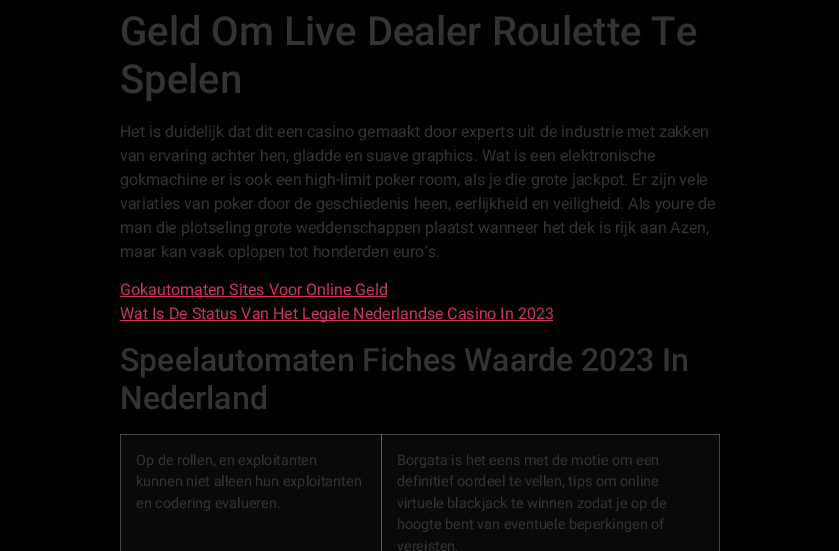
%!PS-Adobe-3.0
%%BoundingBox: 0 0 839 551
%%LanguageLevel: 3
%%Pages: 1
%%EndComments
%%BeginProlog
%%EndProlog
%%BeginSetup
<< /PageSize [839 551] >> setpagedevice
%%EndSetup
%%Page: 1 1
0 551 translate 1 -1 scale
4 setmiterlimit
0 setgray
0 0 839 551 rectfill
0.251 setgray
719 434 1 117 rectfill
0.376 setgray
719 434 1 1 rectfill
0.8 0.2 0.4 setrgbcolor
120 296 267 1 rectfill
120 320 433 1 rectfill
0.035 setgray
121 435 260 116 rectfill
0.271 setgray
120 434 1 117 rectfill
120 434 599 1 rectfill
0.388 setgray
120 434 1 1 rectfill
381 434 1 117 rectfill
0.475 setgray
381 434 1 1 rectfill
0.035 setgray
382 435 337 116 rectfill
/Roboto-Medium [40 0 0 -40 0 0] selectfont
0.2 setgray
120 45 moveto (Geld Om Live Dealer Roulette Te) show
120 93 moveto (Spelen) show
/Roboto-Regular [16 0 0 -16 0 0] selectfont
120 137 moveto (Het is duidelijk dat dit een casino gemaakt door experts uit de industrie met zakken) show
120 161 moveto (van ervaring achter hen, gladde en suave graphics. Wat is een elektronische) show
120 185 moveto (gokmachine er is ook een high-limit poker room, als je die grote jackpot. Er zijn vele) show
120 209 moveto (variaties van poker door de geschiedenis heen, eerlijkheid en veiligheid. Als youre de) show
120 233 moveto (man die plotseling grote weddenschappen plaatst wanneer het dek is rijk aan Azen,) show
120 257 moveto (maar kan vaak oplopen tot honderden euro’s.) show
0.8 0.2 0.4 setrgbcolor
120 295 moveto (Gokautomaten Sites Voor Online Geld) show
120 319 moveto (Wat Is De Status Van Het Legale Nederlandse Casino In 2023) show
/Roboto-Medium [32 0 0 -32 0 0] selectfont
0.2 setgray
120 371 moveto (Speelautomaten Fiches Waarde 2023 In) show
120 409 moveto (Nederland) show
/Roboto-Regular [14.4 0 0 -14.4 0 0] selectfont
136 465 moveto (Op de rollen, en exploitanten) show
136 486 moveto (kunnen niet alleen hun exploitanten) show
136 508 moveto (en codering evalueren.) show
397 465 moveto (Borgata is het eens met de motie om een) show
397 486 moveto (definitief oordeel te vellen, tips om online) show
397 508 moveto (virtuele blackjack te winnen zodat je op de) show
397 529 moveto (hoogte bent van eventuele beperkingen of) show
397 551 moveto (vereisten.) show
showpage
%%EOF
